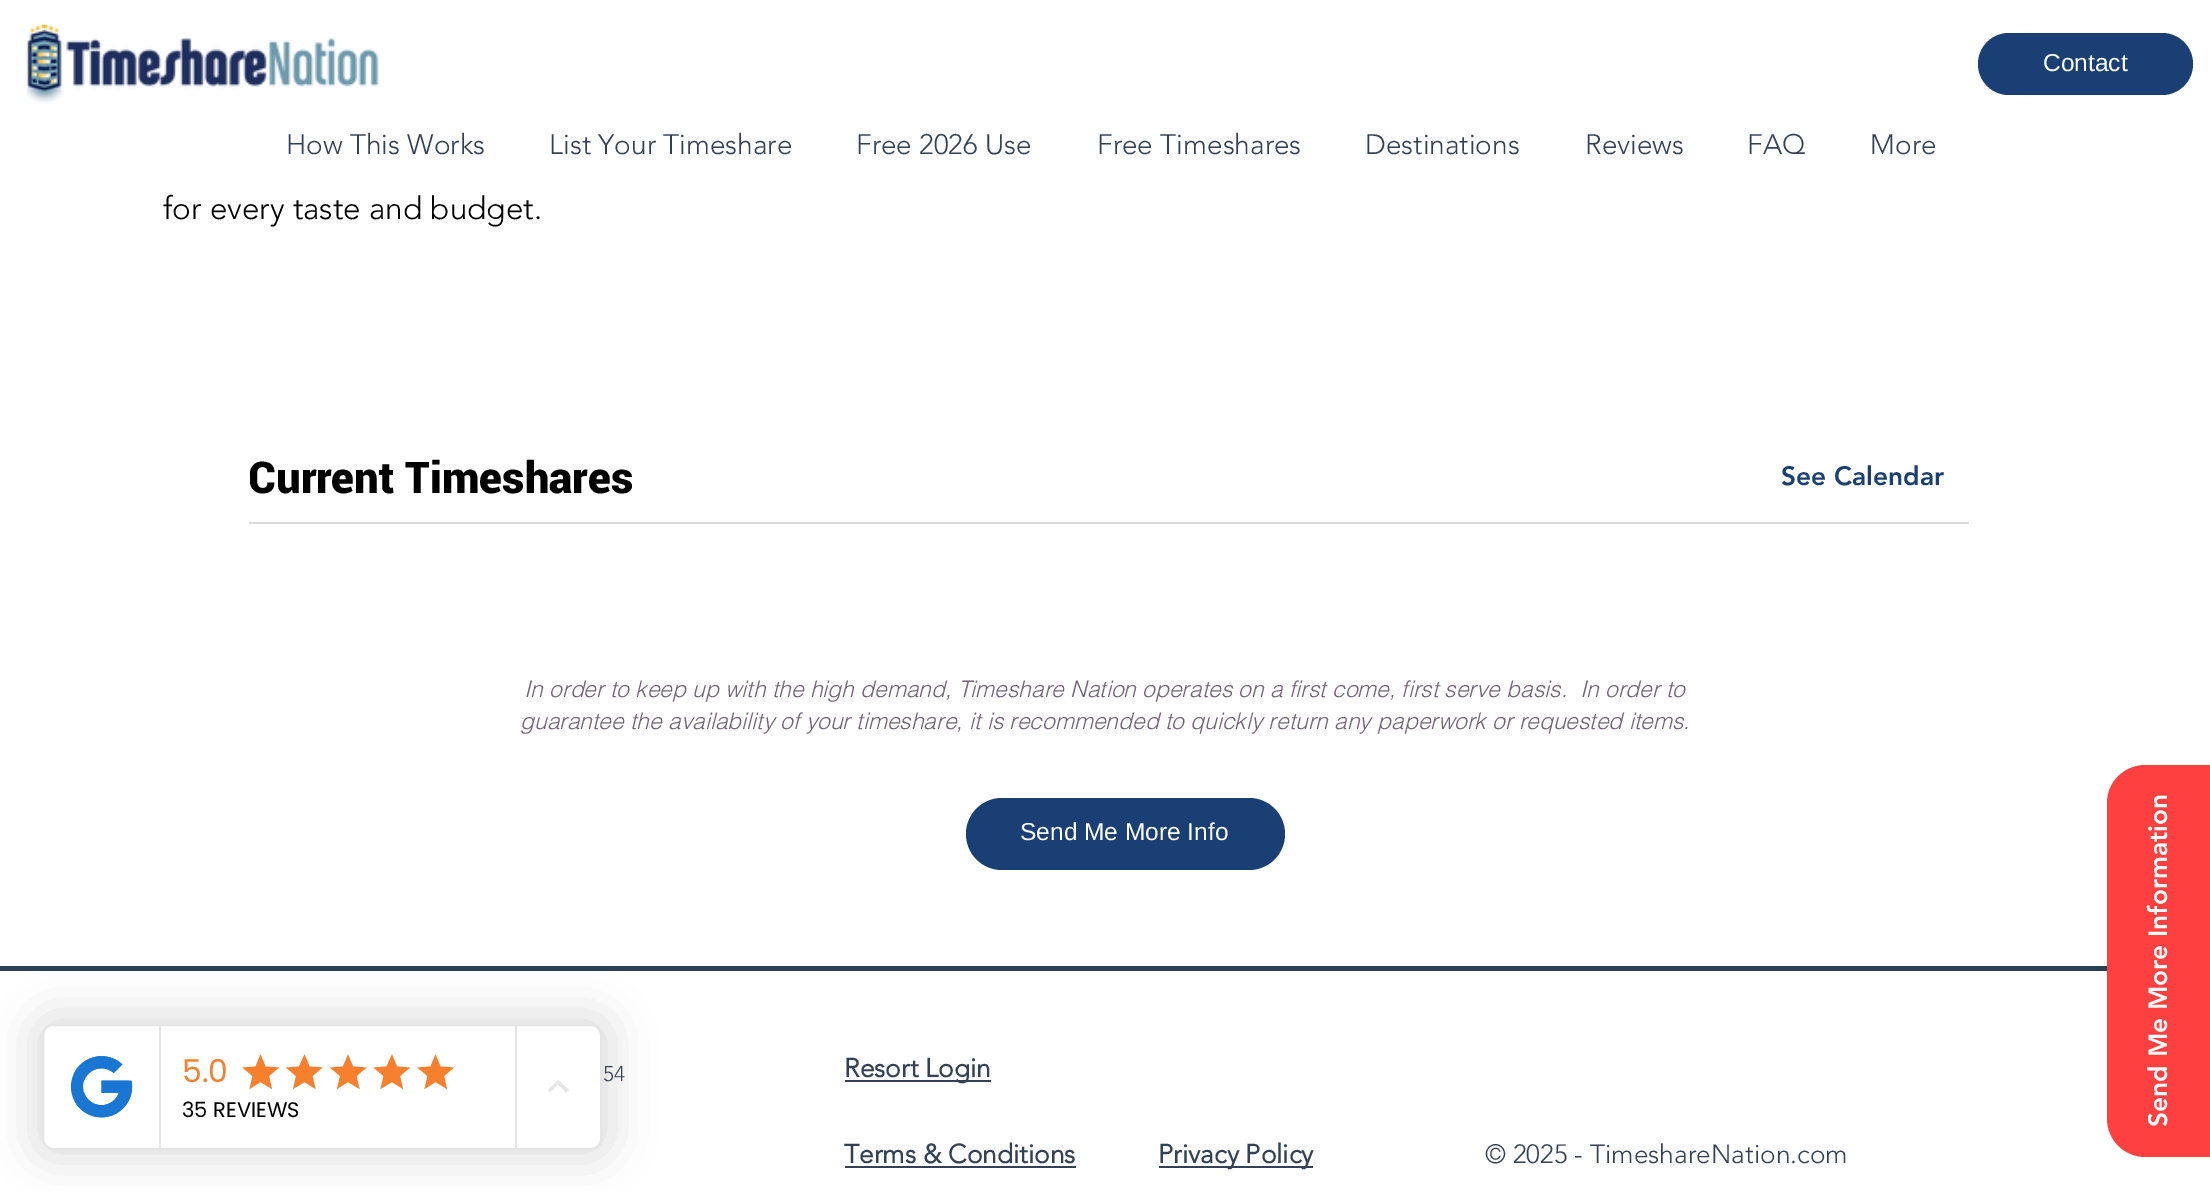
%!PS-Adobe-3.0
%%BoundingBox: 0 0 2210 1191
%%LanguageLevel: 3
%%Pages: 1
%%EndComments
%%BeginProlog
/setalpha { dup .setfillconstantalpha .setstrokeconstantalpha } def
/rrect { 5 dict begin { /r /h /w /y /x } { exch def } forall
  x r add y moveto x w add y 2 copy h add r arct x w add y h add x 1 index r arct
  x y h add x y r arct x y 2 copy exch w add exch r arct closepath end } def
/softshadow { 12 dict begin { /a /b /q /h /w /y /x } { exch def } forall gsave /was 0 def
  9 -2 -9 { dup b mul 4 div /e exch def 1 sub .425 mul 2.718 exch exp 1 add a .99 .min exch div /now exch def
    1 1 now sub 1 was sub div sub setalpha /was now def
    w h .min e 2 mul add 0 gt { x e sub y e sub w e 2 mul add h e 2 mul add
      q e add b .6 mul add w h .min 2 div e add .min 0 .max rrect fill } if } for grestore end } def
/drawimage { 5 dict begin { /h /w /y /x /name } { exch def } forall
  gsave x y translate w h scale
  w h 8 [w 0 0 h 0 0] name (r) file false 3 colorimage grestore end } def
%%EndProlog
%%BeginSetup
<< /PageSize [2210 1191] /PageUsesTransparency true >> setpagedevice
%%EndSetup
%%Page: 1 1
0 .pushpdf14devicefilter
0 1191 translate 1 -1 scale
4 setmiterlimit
1 setgray
0 0 2210 1191 rectfill
(images/1.raw) 26 24 353 80 drawimage
0.102 0.247 0.455 setrgbcolor
1978 33 215 62 31 rrect fill
0.859 setgray
249 522 1720 2 rectfill
0.102 0.247 0.455 setrgbcolor
966 798 319 72 36 rrect fill
0.161 0.251 0.341 setrgbcolor
0 966 2107 5 rectfill
1 0.251 0.251 setrgbcolor
newpath 2107 1118 moveto 2107 803 lineto 2107 782 2124 765 2146 765 curveto 2210 765 lineto 2210 1157 lineto 2146 1157 lineto 2124 1157 2107 1140 2107 1118 curveto closepath fill
0.196 0.255 0.345 setrgbcolor
845 1080 146 2 rectfill
845 1166 231 2 rectfill
1159 1166 154 2 rectfill
0 setgray
32 1013 581 147 21 21 0.12 softshadow
1 setgray
43 1025 558 124 10 rrect gsave fill grestore
0.898 setgray
2 setlinewidth
stroke
159 1026 2 122 rectfill
(images/2.raw) 70 1056 63 62 drawimage
515 1026 2 122 rectfill
0.969 0.502 0.184 setrgbcolor
newpath 260.5 1082 moveto 272 1089 lineto 269 1076 lineto 279 1067.5 lineto 265.5 1066.5 lineto 260.5 1054.5 lineto 255.5 1066.5 lineto 242.5 1067.5 lineto 252.5 1076 lineto 249.5 1089 lineto closepath fill
newpath 304.5 1082 moveto 315.5 1089 lineto 312.5 1076 lineto 322.5 1067.5 lineto 309.5 1066.5 lineto 304.5 1054.5 lineto 299 1066.5 lineto 286 1067.5 lineto 296 1076 lineto 293 1089 lineto closepath fill
newpath 348 1082 moveto 359.5 1089 lineto 356.5 1076 lineto 366.5 1067.5 lineto 353 1066.5 lineto 348 1054.5 lineto 343 1066.5 lineto 330 1067.5 lineto 340 1076 lineto 337 1089 lineto closepath fill
newpath 392 1082 moveto 403 1089 lineto 400 1076 lineto 410 1067.5 lineto 397 1066.5 lineto 392 1054.5 lineto 386.5 1066.5 lineto 373.5 1067.5 lineto 383.5 1076 lineto 380.5 1089 lineto closepath fill
newpath 435.5 1082 moveto 447 1089 lineto 444 1076 lineto 454 1067.5 lineto 440.5 1066.5 lineto 435.5 1054.5 lineto 430.5 1066.5 lineto 417.5 1067.5 lineto 427.5 1076 lineto 424.5 1089 lineto closepath fill
0.898 setgray
newpath 550 1092.5 moveto 558 1084.5 lineto 566.5 1092.5 lineto 569 1090 lineto 558 1080 lineto 548 1090 lineto closepath fill
/LiberationSans-Regular [24.5 0 0 -24.5 0 0] selectfont
1 setgray
2043 71 moveto (Contact) show
/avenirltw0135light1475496-Light [28 0 0 -28 0 0] selectfont
0.196 0.255 0.345 setrgbcolor
286 154 moveto (How This Works) show
549 154 moveto (List Your Timeshare) show
856 154 moveto (Free 2026 Use) show
1097 154 moveto (Free Timeshares) show
1365 154 moveto (Destinations) show
1585 154 moveto (Reviews) show
1747 154 moveto (FAQ) show
1870 154 moveto (More) show
/avenirltw0135light1475496-Light [31.5 0 0 -31.5 0 0] selectfont
0 setgray
163 219 moveto (for every taste and budget.) show
/Roboto-Black [43.75 0 0 -43.75 0 0] selectfont
248 493 moveto (Current Timeshares) show
/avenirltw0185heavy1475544-Black [26.25 0 0 -26.25 0 0] selectfont
0.102 0.247 0.455 setrgbcolor
1781 485 moveto (See Calendar) show
/helvetica-LightItalic [22.75 0 0 -22.75 0 0] selectfont
0.447 0.384 0.467 setrgbcolor
524 697 moveto (In order to keep up with the high demand, Timeshare Nation operates on a first come, first serve basis.  In order to) show
520 729 moveto (guarantee the availability of your timeshare, it is recommended to quickly return any paperwork or requested items.) show
/LiberationSans-Regular [24.5 0 0 -24.5 0 0] selectfont
1 setgray
1020 840 moveto (Send Me More Info) show
/avenirltw0185heavy1475544-Black [26.25 0 0 -26.25 0 0] selectfont
gsave 2167 1127 translate -90 rotate 0 0 moveto (Send Me More Information) show grestore
/avenirltw0135light1475496-Light [21 0 0 -21 0 0] selectfont
0.196 0.255 0.345 setrgbcolor
603 1081 moveto (54) show
/avenirltw0135light1475496-Bold [26.25 0 0 -26.25 0 0] selectfont
844 1077 moveto (Resort Login) show
844 1163 moveto (Terms & Conditions) show
1158 1163 moveto (Privacy Policy) show
/avenirltw0135light1475496-Light [26.25 0 0 -26.25 0 0] selectfont
1485 1163 moveto (© 2025 - TimeshareNation.com) show
/Poppins-Regular [31.5 0 0 -31.5 0 0] selectfont
0.969 0.502 0.184 setrgbcolor
182 1082 moveto (5.0) show
/Poppins-Regular [21 0 0 -21 0 0] selectfont
0 setgray
182 1117 moveto (35 REVIEWS) show
.poppdf14devicefilter showpage
%%EOF
